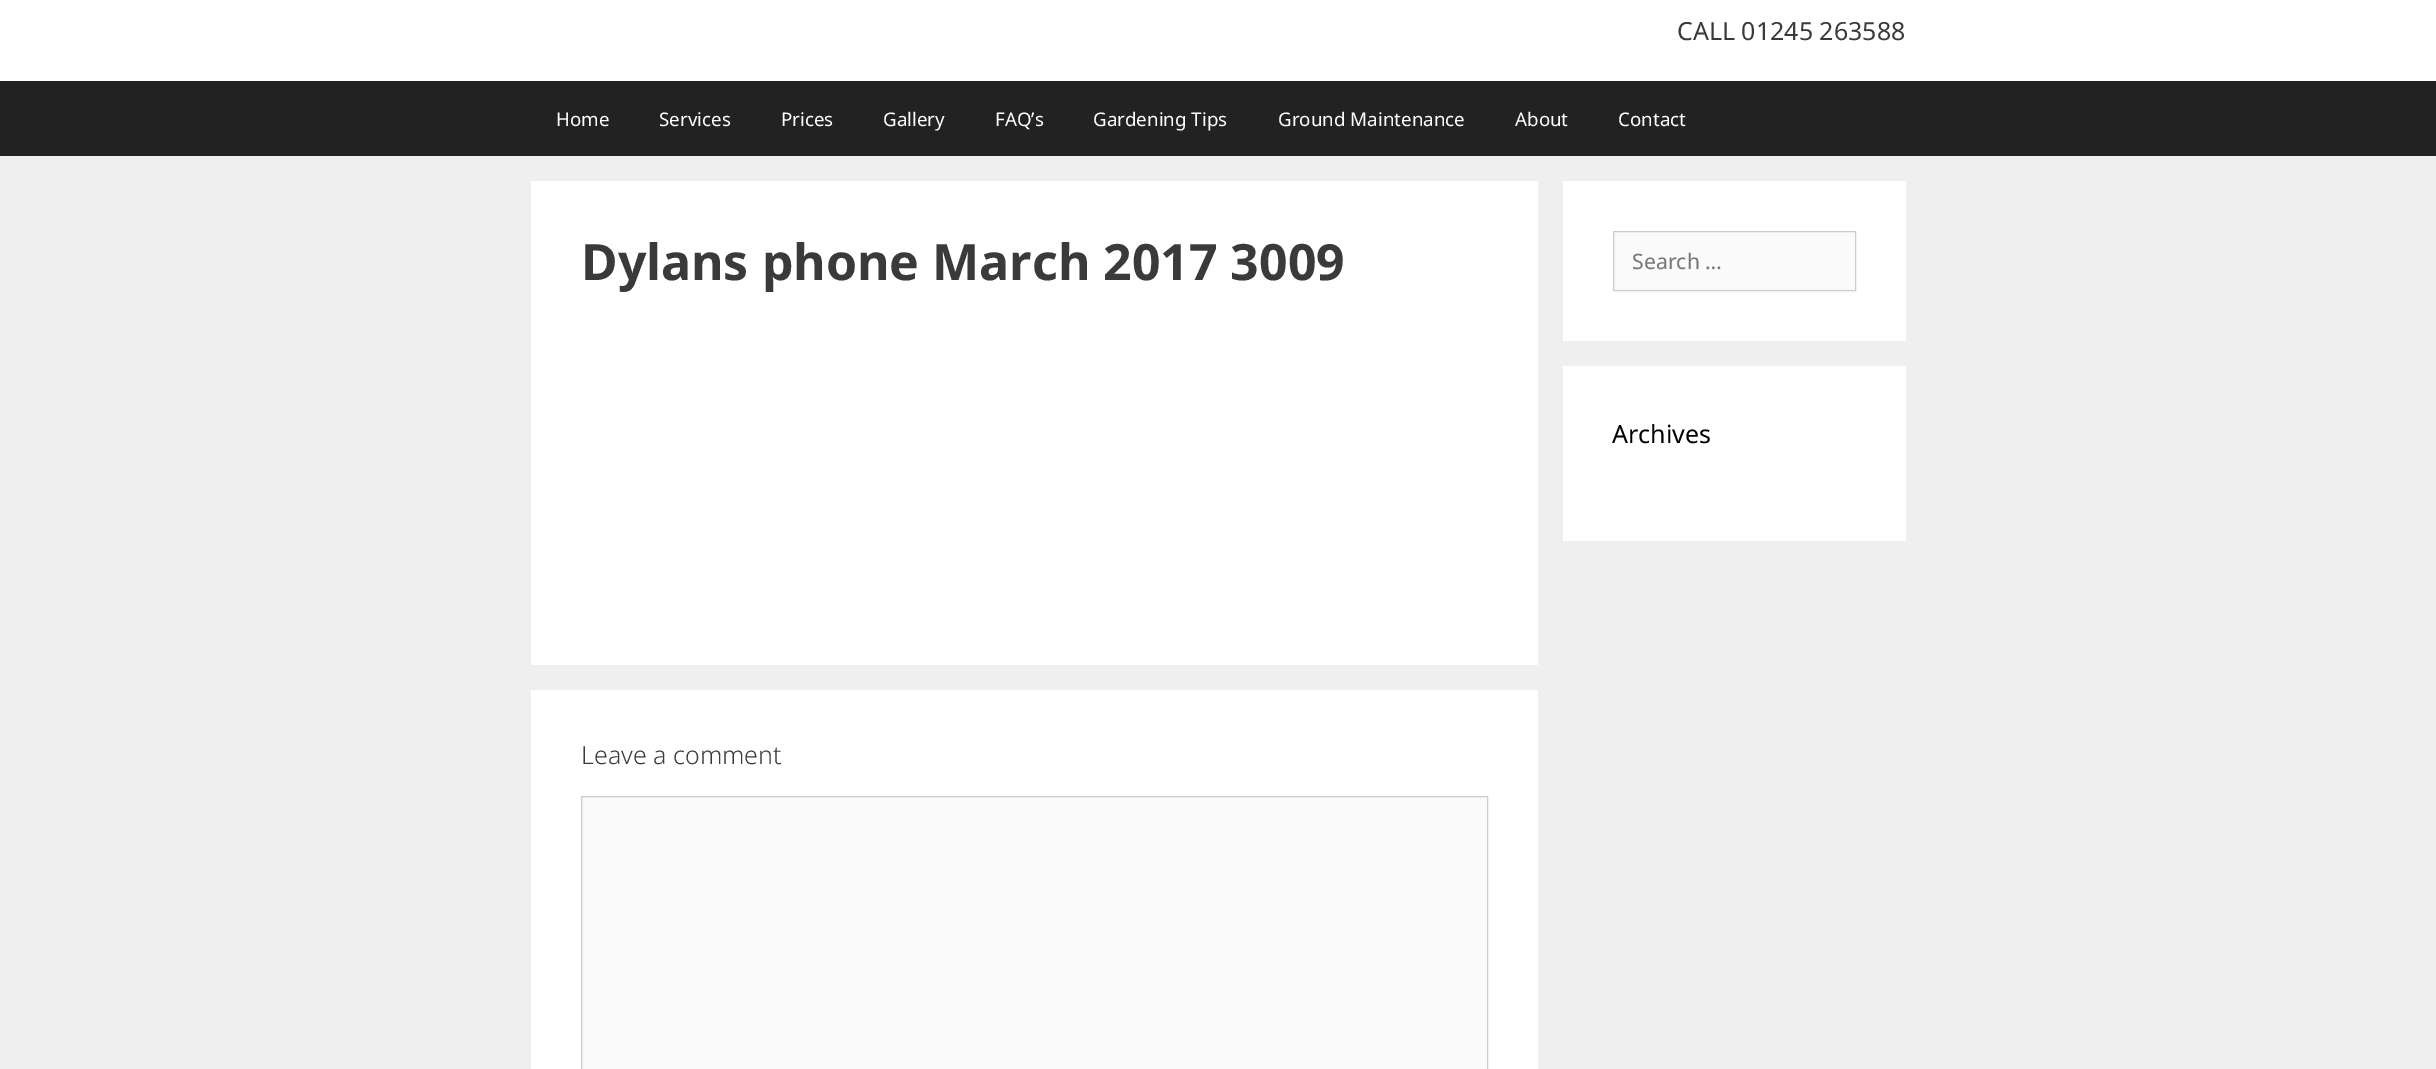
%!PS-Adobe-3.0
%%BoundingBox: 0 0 2436 1069
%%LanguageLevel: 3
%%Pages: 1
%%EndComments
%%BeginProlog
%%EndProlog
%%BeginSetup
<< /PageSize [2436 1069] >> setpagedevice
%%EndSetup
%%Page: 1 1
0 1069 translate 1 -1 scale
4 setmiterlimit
0.937 setgray
0 0 2436 1069 rectfill
1 setgray
0 0 2436 81 rectfill
0.133 setgray
0 81 2436 75 rectfill
1 setgray
531 181 1007 484 rectfill
531 690 1007 379 rectfill
0.98 setgray
newpath 581.5 796.5 moveto 1487.5 796.5 lineto 1487.5 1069.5 lineto 581.5 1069.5 lineto closepath gsave fill grestore
0.8 setgray
stroke
1 setgray
1563 181 343 160 rectfill
0.98 setgray
newpath 1613.5 231.5 moveto 1855.5 231.5 lineto 1855.5 290.5 lineto 1613.5 290.5 lineto closepath gsave fill grestore
0.8 setgray
stroke
1 setgray
1563 366 343 175 rectfill
/NotoSans-Regular [25 0 0 -25 0 0] selectfont
0.227 setgray
1677 40 moveto (CALL 01245 263588) show
/NotoSans-Regular [18.75 0 0 -18.75 0 0] selectfont
1 setgray
556 126 moveto (Home) show
659 126 moveto (Services) show
781 126 moveto (Prices) show
883 126 moveto (Gallery) show
995 126 moveto (FAQ’s) show
1093 126 moveto (Gardening Tips) show
1278 126 moveto (Ground Maintenance) show
1515 126 moveto (About) show
1618 126 moveto (Contact) show
/NotoSans-Bold [50 0 0 -50 0 0] selectfont
0.227 setgray
581 280 moveto (Dylans phone March 2017 3009) show
/NotoSans-Light [25 0 0 -25 0 0] selectfont
581 764 moveto (Leave a comment) show
/NotoSans-Regular [21.25 0 0 -21.25 0 0] selectfont
0.459 setgray
1632 269 moveto (Search …) show
/NotoSans-Regular [25 0 0 -25 0 0] selectfont
0 setgray
1612 443 moveto (Archives) show
showpage
%%EOF
